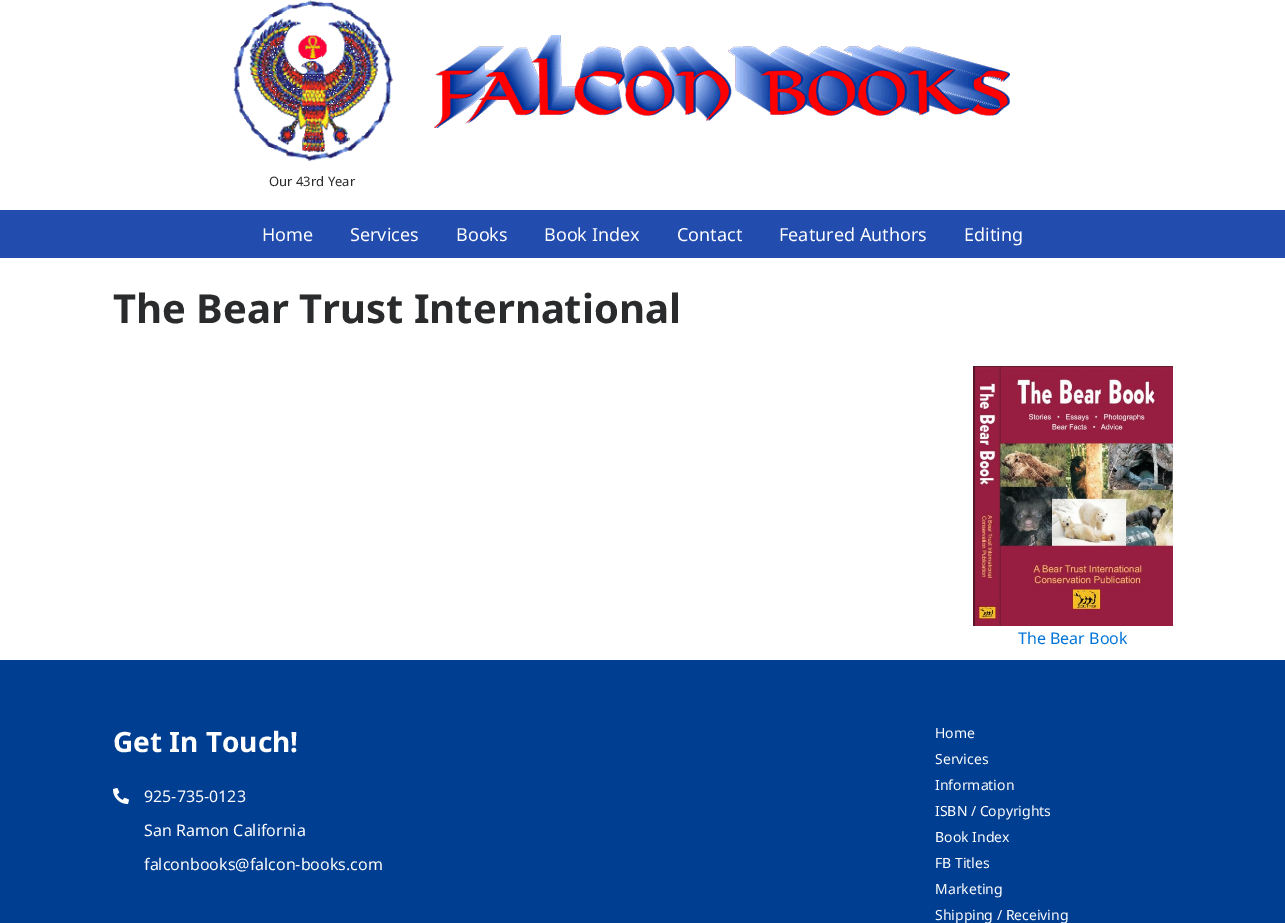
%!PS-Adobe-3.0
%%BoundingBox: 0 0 1285 923
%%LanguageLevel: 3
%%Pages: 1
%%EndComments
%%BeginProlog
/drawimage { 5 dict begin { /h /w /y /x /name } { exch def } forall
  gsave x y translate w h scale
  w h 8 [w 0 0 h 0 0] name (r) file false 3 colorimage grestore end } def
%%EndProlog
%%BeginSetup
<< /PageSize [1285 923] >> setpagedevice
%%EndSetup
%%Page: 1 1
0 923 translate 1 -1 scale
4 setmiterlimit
1 setgray
0 0 1285 923 rectfill
(images/1.raw) 434 35 576 93 drawimage
(images/2.raw) 233 0 161 162 drawimage
0.133 0.298 0.678 setrgbcolor
0 210 1285 48 rectfill
(images/3.raw) 973 366 200 260 drawimage
0 0.243 0.569 setrgbcolor
0 660 1285 263 rectfill
(images/4.raw) 113 788 16 16 drawimage
/NotoSans-Regular [13 0 0 -13 0 0] selectfont
0.161 0.169 0.173 setrgbcolor
269 186 moveto (Our 43rd Year) show
/NotoSans-Regular [18 0 0 -18 0 0] selectfont
1 setgray
262 241 moveto (Home) show
350 241 moveto (Services) show
456 241 moveto (Books) show
544 241 moveto (Book Index) show
677 241 moveto (Contact) show
779 241 moveto (Featured Authors) show
964 241 moveto (Editing) show
/NotoSans-Bold [40 0 0 -40 0 0] selectfont
0.161 0.169 0.173 setrgbcolor
113 323 moveto (The Bear Trust International) show
/NotoSans-Regular [16 0 0 -16 0 0] selectfont
0.008 0.459 0.847 setrgbcolor
1018 644 moveto (The Bear Book) show
/NotoSans-Bold [28 0 0 -28 0 0] selectfont
1 setgray
113 752 moveto (Get In Touch!) show
/NotoSans-Regular [16 0 0 -16 0 0] selectfont
144 802 moveto (925-735-0123) show
144 836 moveto (San Ramon California) show
144 870 moveto (falconbooks@falcon-books.com) show
/NotoSans-Regular [14 0 0 -14 0 0] selectfont
935 738 moveto (Home) show
935 764 moveto (Services) show
935 790 moveto (Information) show
935 816 moveto (ISBN / Copyrights) show
935 842 moveto (Book Index) show
935 868 moveto (FB Titles) show
935 894 moveto (Marketing) show
935 920 moveto (Shipping / Receiving) show
showpage
%%EOF
